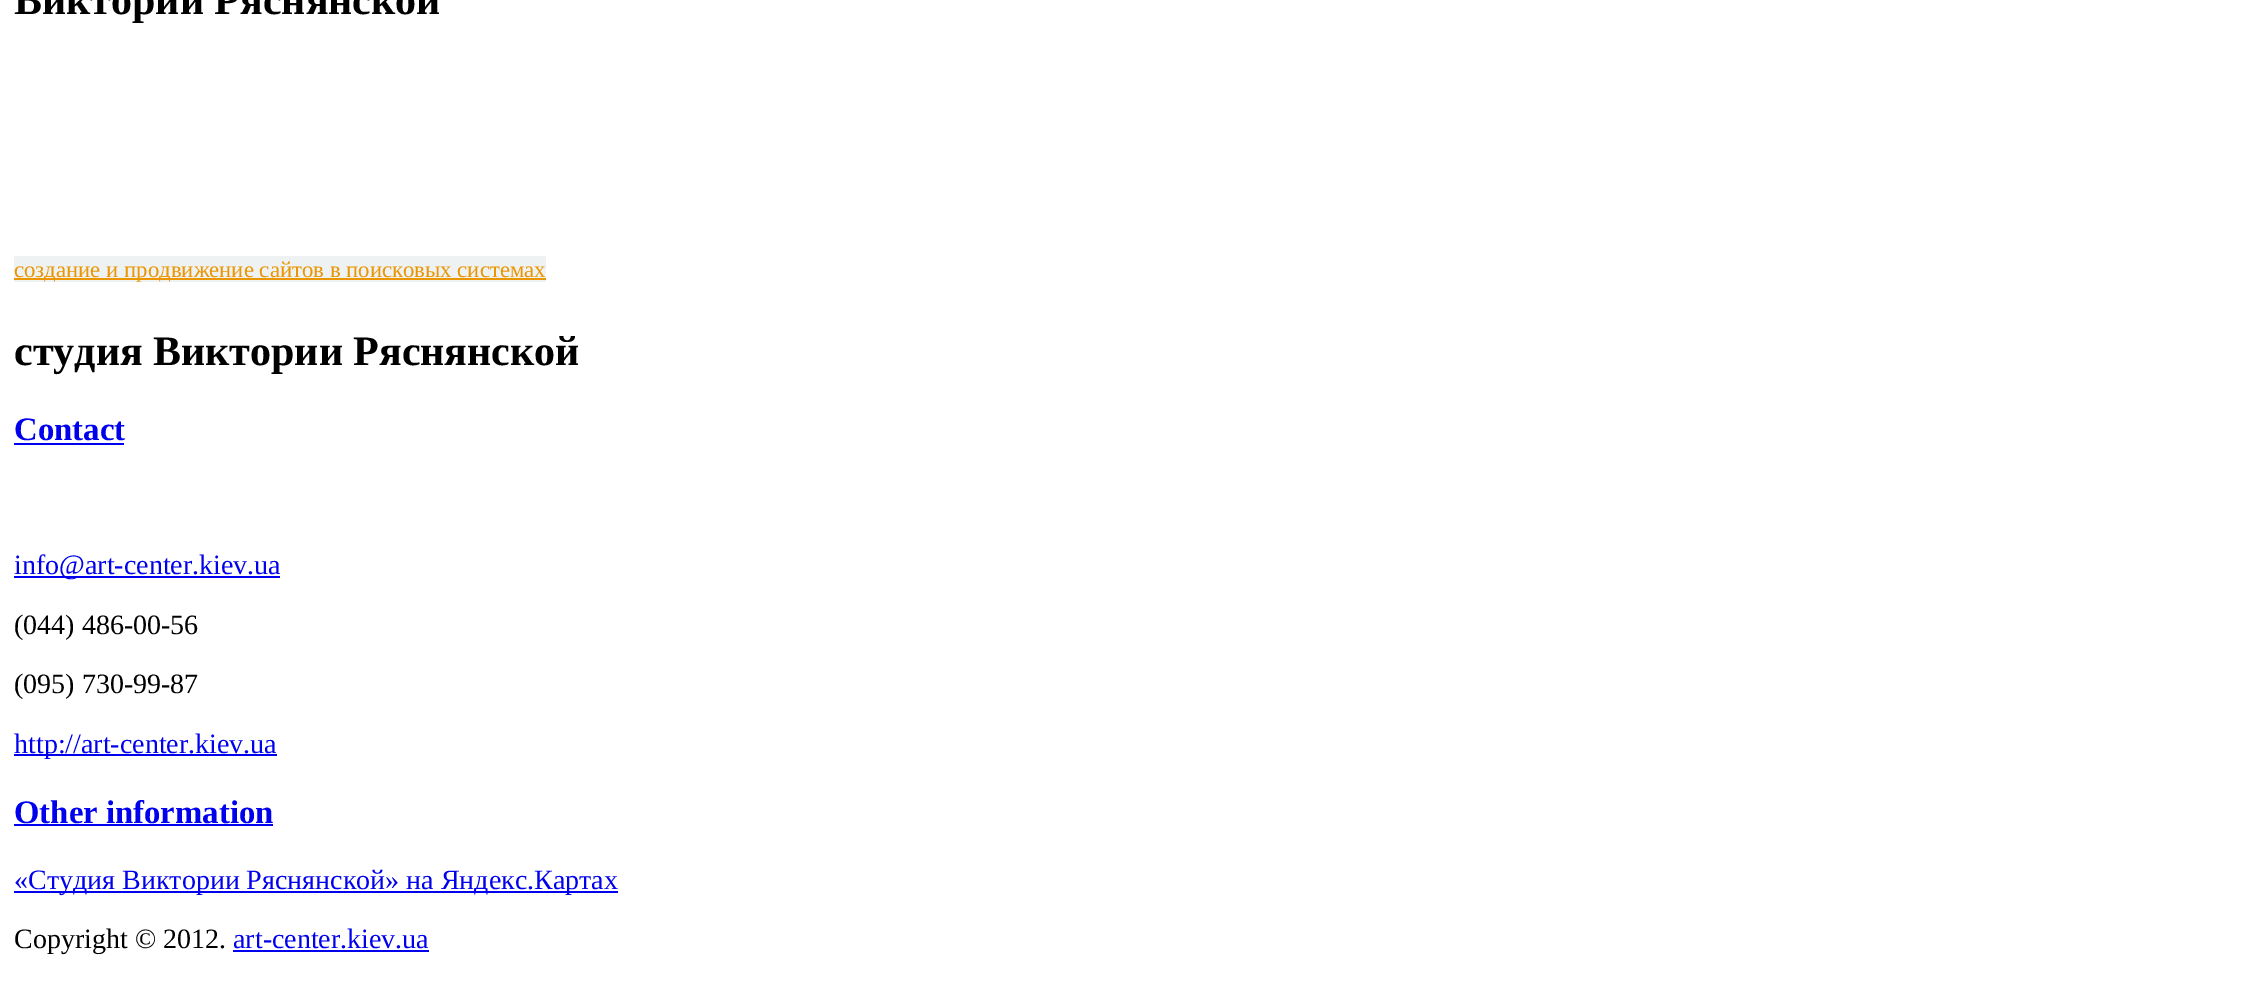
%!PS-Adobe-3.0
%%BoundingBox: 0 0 2261 983
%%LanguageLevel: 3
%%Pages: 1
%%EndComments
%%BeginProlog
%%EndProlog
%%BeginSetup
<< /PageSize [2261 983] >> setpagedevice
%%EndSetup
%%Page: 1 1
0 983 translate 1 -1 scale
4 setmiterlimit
1 setgray
0 0 2261 983 rectfill
0.937 0.949 0.949 setrgbcolor
14 256 532 26 rectfill
0.922 0.584 0 setrgbcolor
14 278 532 2 rectfill
0 0 0.933 setrgbcolor
14 443 110 2 rectfill
14 576 266 2 rectfill
14 754 263 2 rectfill
14 824 259 2 rectfill
14 891 604 2 rectfill
233 950 196 2 rectfill
/LiberationSerif-Bold [42 0 0 -42 0 0] selectfont
0 setgray
14 14 moveto (Виктории Ряснянской) show
/LiberationSerif-Regular [22.75 0 0 -22.75 0 0] selectfont
0.922 0.584 0 setrgbcolor
14 277 moveto (создание и продвижение сайтов в поисковых системах) show
/LiberationSerif-Bold [42 0 0 -42 0 0] selectfont
0 setgray
14 365 moveto (студия Виктории Ряснянской) show
/LiberationSerif-Bold [32.75 0 0 -32.75 0 0] selectfont
0 0 0.933 setrgbcolor
14 440 moveto (Contact) show
/LiberationSerif-Regular [28 0 0 -28 0 0] selectfont
14 574 moveto (info@art-center.kiev.ua) show
0 setgray
14 634 moveto (\(044\) 486-00-56) show
14 693 moveto (\(095\) 730-99-87) show
0 0 0.933 setrgbcolor
14 753 moveto (http://art-center.kiev.ua) show
/LiberationSerif-Bold [32.75 0 0 -32.75 0 0] selectfont
14 823 moveto (Other information) show
/LiberationSerif-Regular [28 0 0 -28 0 0] selectfont
14 889 moveto («Студия Виктории Ряснянской» на Яндекс.Картах) show
0 setgray
14 948 moveto (Copyright © 2012.) show
0 0 0.933 setrgbcolor
233 948 moveto (art-center.kiev.ua) show
showpage
%%EOF
